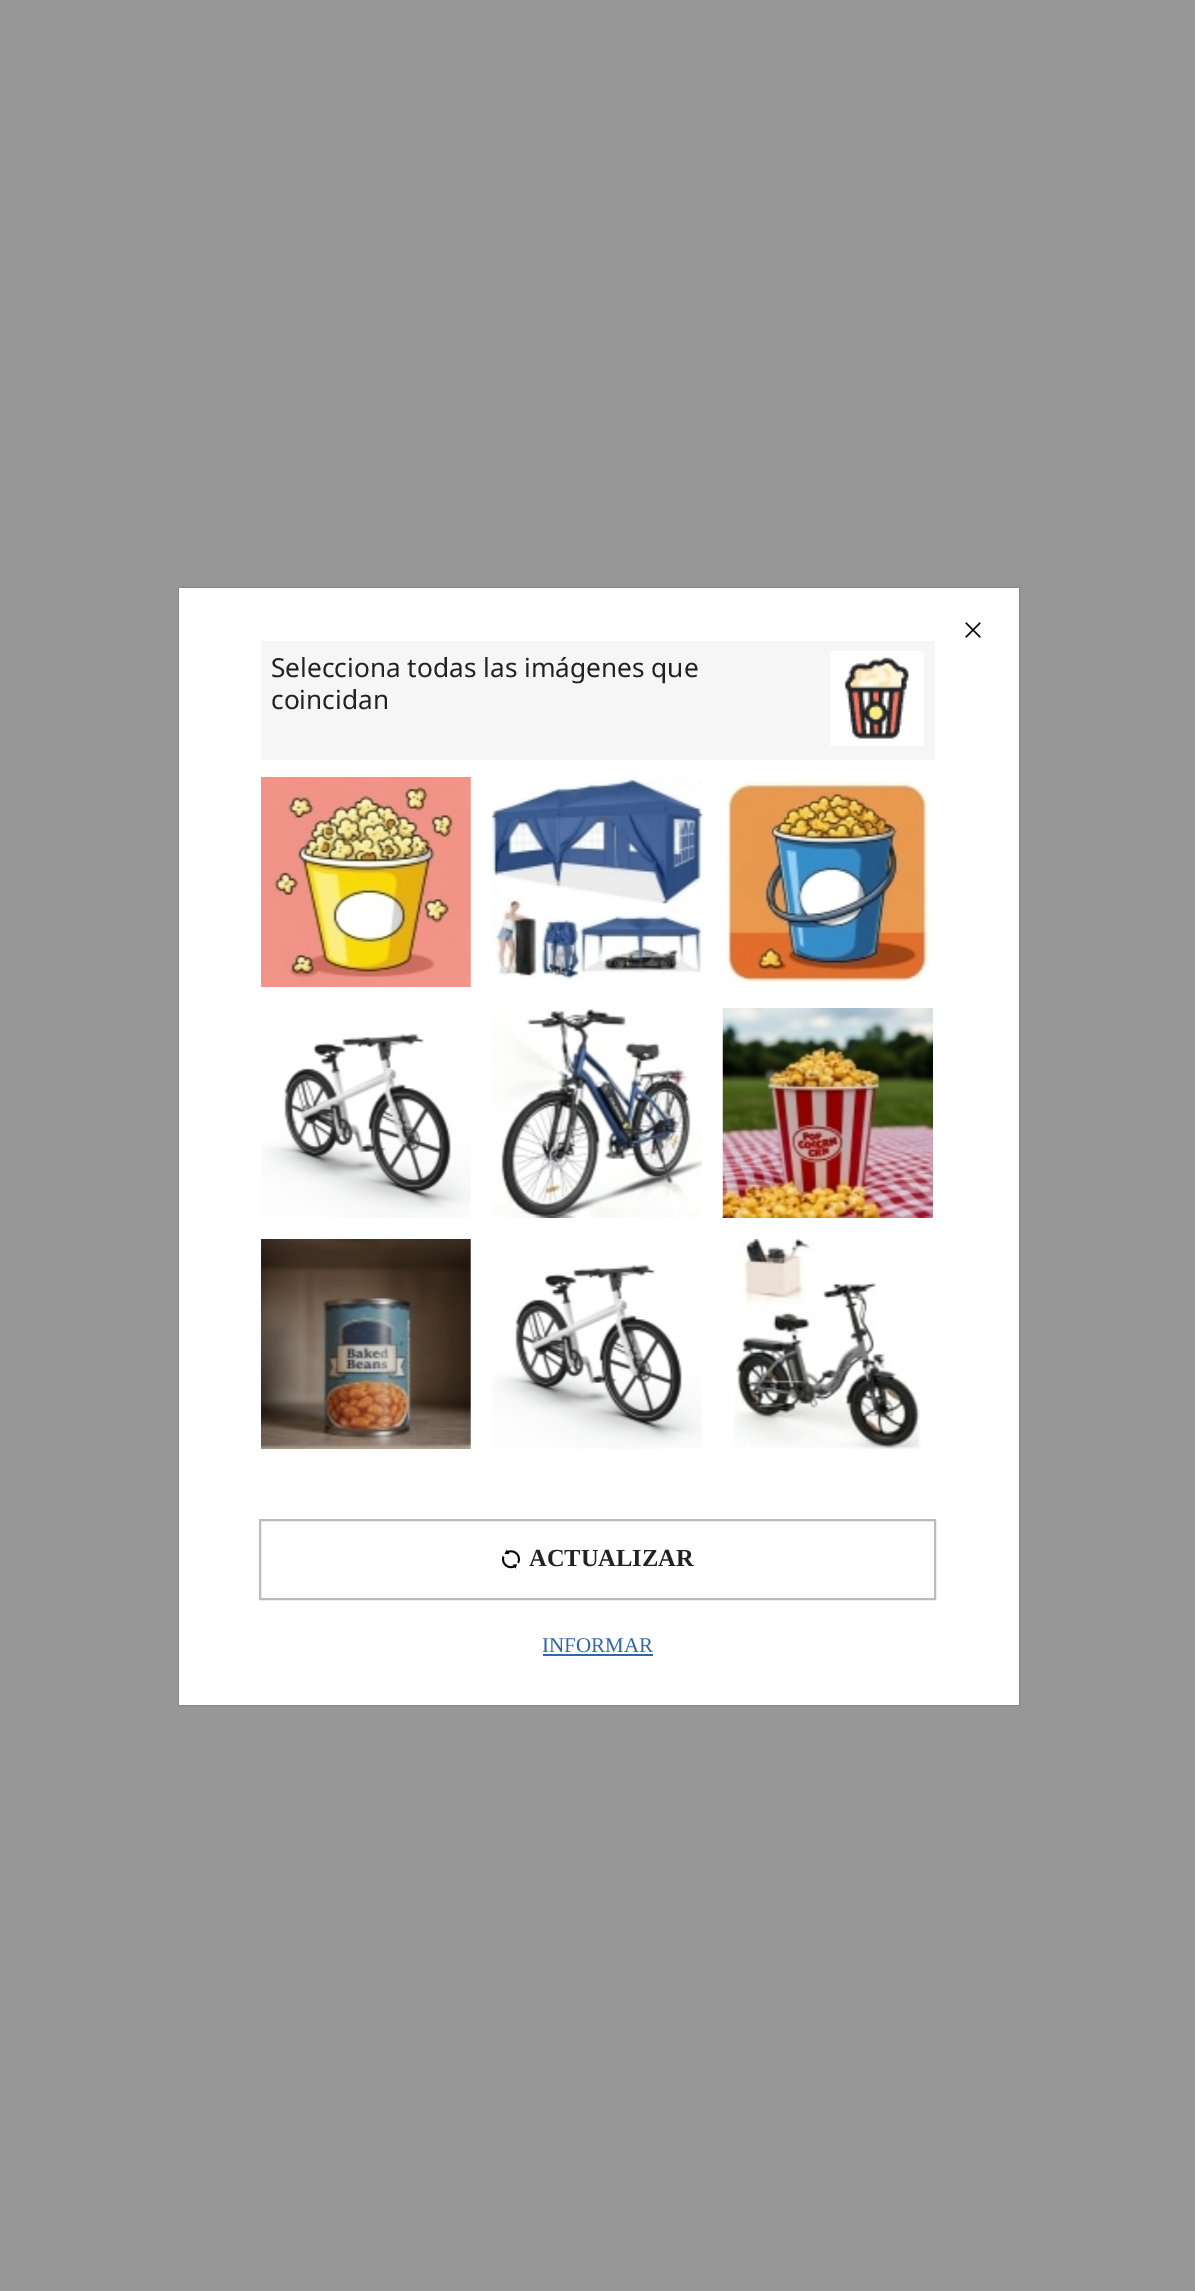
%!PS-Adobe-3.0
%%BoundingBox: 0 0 1195 2291
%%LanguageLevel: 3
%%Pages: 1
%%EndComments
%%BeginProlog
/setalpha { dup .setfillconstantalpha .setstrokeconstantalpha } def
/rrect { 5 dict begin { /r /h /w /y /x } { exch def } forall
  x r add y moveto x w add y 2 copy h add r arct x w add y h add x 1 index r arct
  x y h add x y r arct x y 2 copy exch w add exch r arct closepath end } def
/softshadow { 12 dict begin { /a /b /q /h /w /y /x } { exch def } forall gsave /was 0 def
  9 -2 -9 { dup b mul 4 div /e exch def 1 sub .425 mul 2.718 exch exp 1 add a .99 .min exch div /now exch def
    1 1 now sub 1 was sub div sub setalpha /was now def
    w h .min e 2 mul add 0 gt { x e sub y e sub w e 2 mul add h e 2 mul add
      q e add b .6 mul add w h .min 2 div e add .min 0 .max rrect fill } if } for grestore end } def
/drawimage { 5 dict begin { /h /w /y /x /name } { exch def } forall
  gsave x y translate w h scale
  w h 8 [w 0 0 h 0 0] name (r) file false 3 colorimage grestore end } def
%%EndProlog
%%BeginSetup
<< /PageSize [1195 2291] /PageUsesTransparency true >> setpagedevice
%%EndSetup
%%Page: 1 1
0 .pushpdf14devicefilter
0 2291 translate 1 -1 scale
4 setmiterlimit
0.592 setgray
0 0 1195 2291 rectfill
0 setgray
179 588 840 1117 0 1 0.3 softshadow
1 setgray
179 588 840 1117 rectfill
(images/1.raw) 965 622 16 16 drawimage
0.965 setgray
261 641 674 119 rectfill
1 setgray
830 651 94 95 rectfill
(images/2.raw) 844 657 65 82 drawimage
(images/3.raw) 261 777 210 210 drawimage
(images/4.raw) 491 777 211 204 drawimage
(images/5.raw) 723 777 208 206 drawimage
(images/6.raw) 261 1033 210 185 drawimage
(images/7.raw) 492 1009 210 209 drawimage
(images/8.raw) 722 1008 211 210 drawimage
(images/9.raw) 261 1239 210 210 drawimage
(images/6.raw) 492 1264 210 185 drawimage
(images/10.raw) 733 1239 188 210 drawimage
0.733 setgray
2 setlinewidth
260 1520 675 79 rectstroke
(images/11.raw) 502 1549 18 20 drawimage
0.176 0.408 0.659 setrgbcolor
543 1654 110 2 rectfill
/NotoSans-Regular [26.25 0 0 -26.25 0 0] selectfont
0.133 setgray
271 677 moveto (Selecciona todas las imágenes que) show
271 709 moveto (coincidan) show
/LiberationSerif-Bold [24.5 0 0 -24.5 0 0] selectfont
529 1566 moveto (ACTUALIZAR) show
/LiberationSerif-Regular [21 0 0 -21 0 0] selectfont
0.176 0.408 0.659 setrgbcolor
542 1652 moveto (INFORMAR) show
.poppdf14devicefilter showpage
%%EOF
